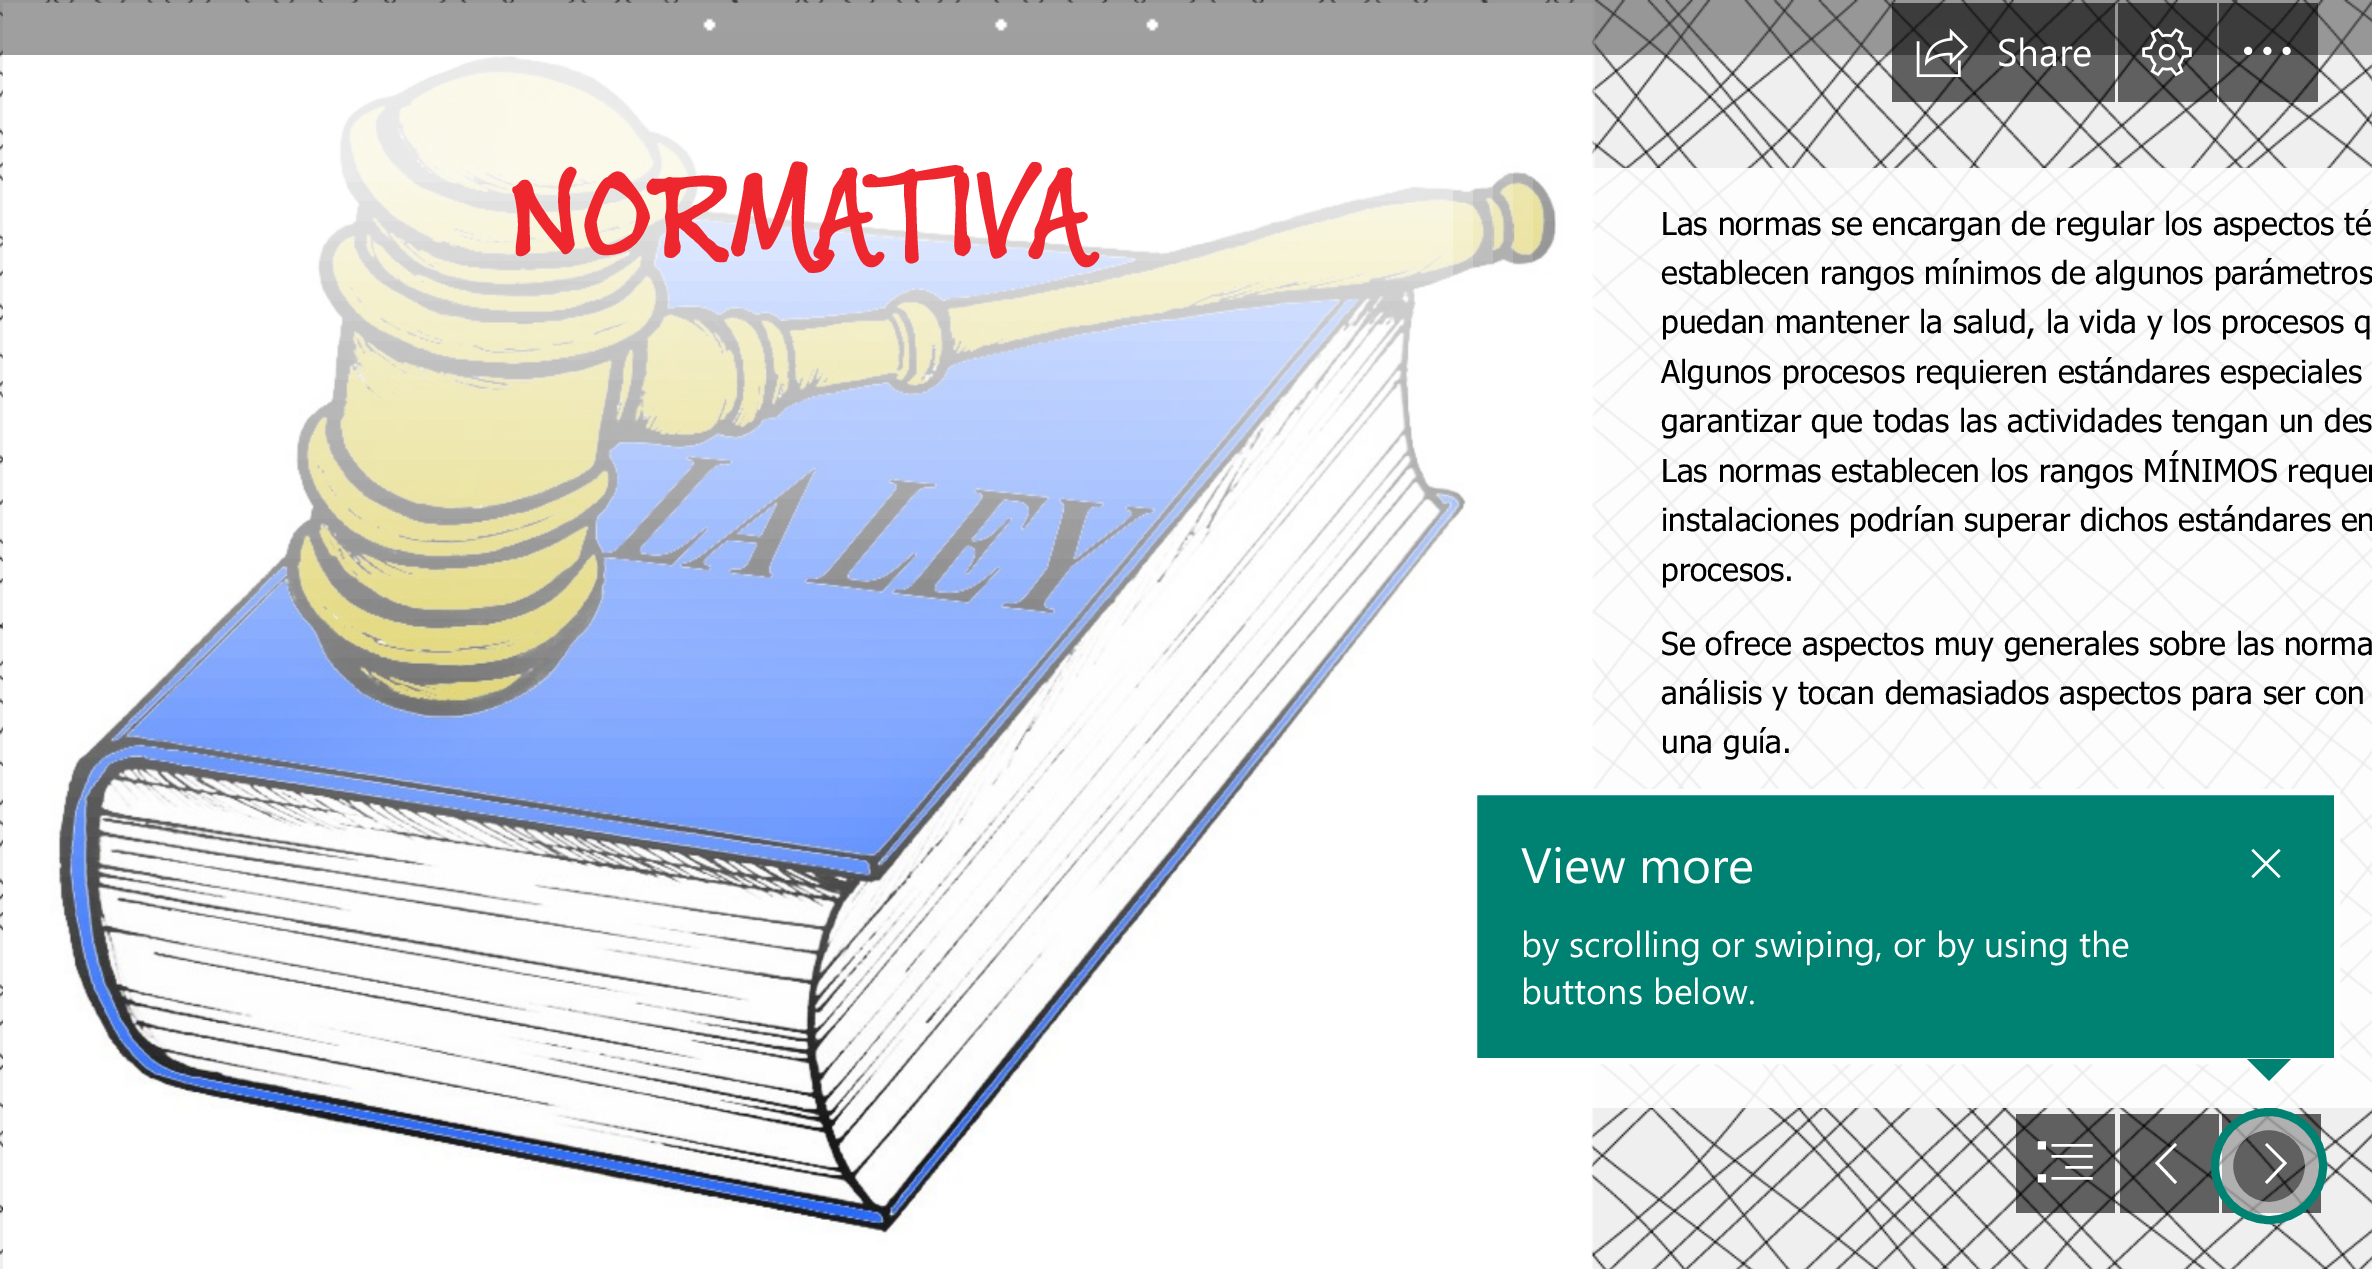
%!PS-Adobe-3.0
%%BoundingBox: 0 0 2372 1269
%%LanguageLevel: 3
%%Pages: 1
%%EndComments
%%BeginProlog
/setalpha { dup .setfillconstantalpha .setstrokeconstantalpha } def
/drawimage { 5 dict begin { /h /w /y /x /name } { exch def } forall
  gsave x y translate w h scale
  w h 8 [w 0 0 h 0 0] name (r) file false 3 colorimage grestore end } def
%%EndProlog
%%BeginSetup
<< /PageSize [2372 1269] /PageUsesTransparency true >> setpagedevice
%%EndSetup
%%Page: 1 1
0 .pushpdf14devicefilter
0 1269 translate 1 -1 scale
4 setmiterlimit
1 setgray
0 0 2372 1269 rectfill
(images/5.raw) 0 0 2372 1269 drawimage
0.9 setalpha
1591 168 781 940 rectfill
1 setalpha
(images/7.raw) 3 3 1590 1266 drawimage
(images/6.raw) 2 2 1593 1256 drawimage
0.5 setalpha
0.251 setgray
0 0 2372 55 rectfill
0.6 setalpha
0 setgray
1892 3 223 99 rectfill
1 setalpha
(images/1.raw) 1916 28 53 49 drawimage
0.6 setalpha
2118 3 99 99 rectfill
1 setalpha
(images/2.raw) 2142 28 50 49 drawimage
0.6 setalpha
2219 3 99 99 rectfill
1 setalpha
(images/3.raw) 2244 46 47 9 drawimage
(images/4.raw) 703 18 456 14 drawimage
0 0.51 0.447 setrgbcolor
newpath 1474 792 moveto 2337 792 lineto 2337 1061 lineto 1474 1061 lineto closepath gsave fill grestore
1 setgray
6 setlinewidth
stroke
(images/8.raw) 2251 848 30 31 drawimage
newpath 2241 1059 moveto 2296 1059 lineto 2269 1086 lineto closepath fill
0 0.51 0.447 setrgbcolor
newpath 2247 1059 moveto 2291 1059 lineto 2269 1081 lineto closepath fill
0.6 setalpha
0 setgray
2120 1114 99 99 rectfill
2222 1114 99 99 rectfill
1 setalpha
1 setgray
newpath 2267 1184 moveto 2265 1182 lineto 2283 1163 lineto 2265 1145 lineto 2267 1143 lineto 2287 1163 lineto closepath fill
0.5 setalpha
19 setlinewidth
newpath 2269 1166 45.5 0 360 arc closepath stroke
1 setalpha
0 0.51 0.447 setrgbcolor
8 setlinewidth
newpath 2269 1166 54 0 360 arc closepath stroke
0.6 setalpha
0 setgray
2016 1114 99 99 rectfill
1 setalpha
(images/9.raw) 2037 1141 56 42 drawimage
1 setgray
newpath 2155 1163 moveto 2175 1143 lineto 2177 1145 lineto 2159 1163 lineto 2177 1182 lineto 2175 1184 lineto closepath fill
/SegoeUI-Regular [38.5 0 0 -38.5 0 0] selectfont
1997 66 moveto (Share) show
/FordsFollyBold-Bold [132.5 0 0 -132.5 0 0] selectfont
0.933 0.149 0.18 setrgbcolor
508 253 moveto (NORMATIVA) show
/Tahoma-Regular [31.75 0 0 -31.75 0 0] selectfont
0 setgray
1661 235 moveto (Las normas se encargan de regular los aspectos té) show
1661 284 moveto (establecen rangos mínimos de algunos parámetros) show
1661 333 moveto (puedan mantener la salud, la vida y los procesos q) show
1661 383 moveto (Algunos procesos requieren estándares especiales) show
1661 432 moveto (garantizar que todas las actividades tengan un des) show
1661 482 moveto (Las normas establecen los rangos MÍNIMOS requer) show
1661 531 moveto (instalaciones podrían superar dichos estándares en) show
1661 581 moveto (procesos.) show
1661 655 moveto (Se ofrece aspectos muy generales sobre las norma) show
1661 704 moveto (análisis y tocan demasiados aspectos para ser con) show
1661 753 moveto (una guía.) show
/SegoeUI-Regular [49.5 0 0 -49.5 0 0] selectfont
1 setgray
1521 883 moveto (View more) show
/SegoeUI-Regular [35.75 0 0 -35.75 0 0] selectfont
1521 957 moveto (by scrolling or swiping, or by using the) show
1521 1004 moveto (buttons below.) show
.poppdf14devicefilter showpage
%%EOF
